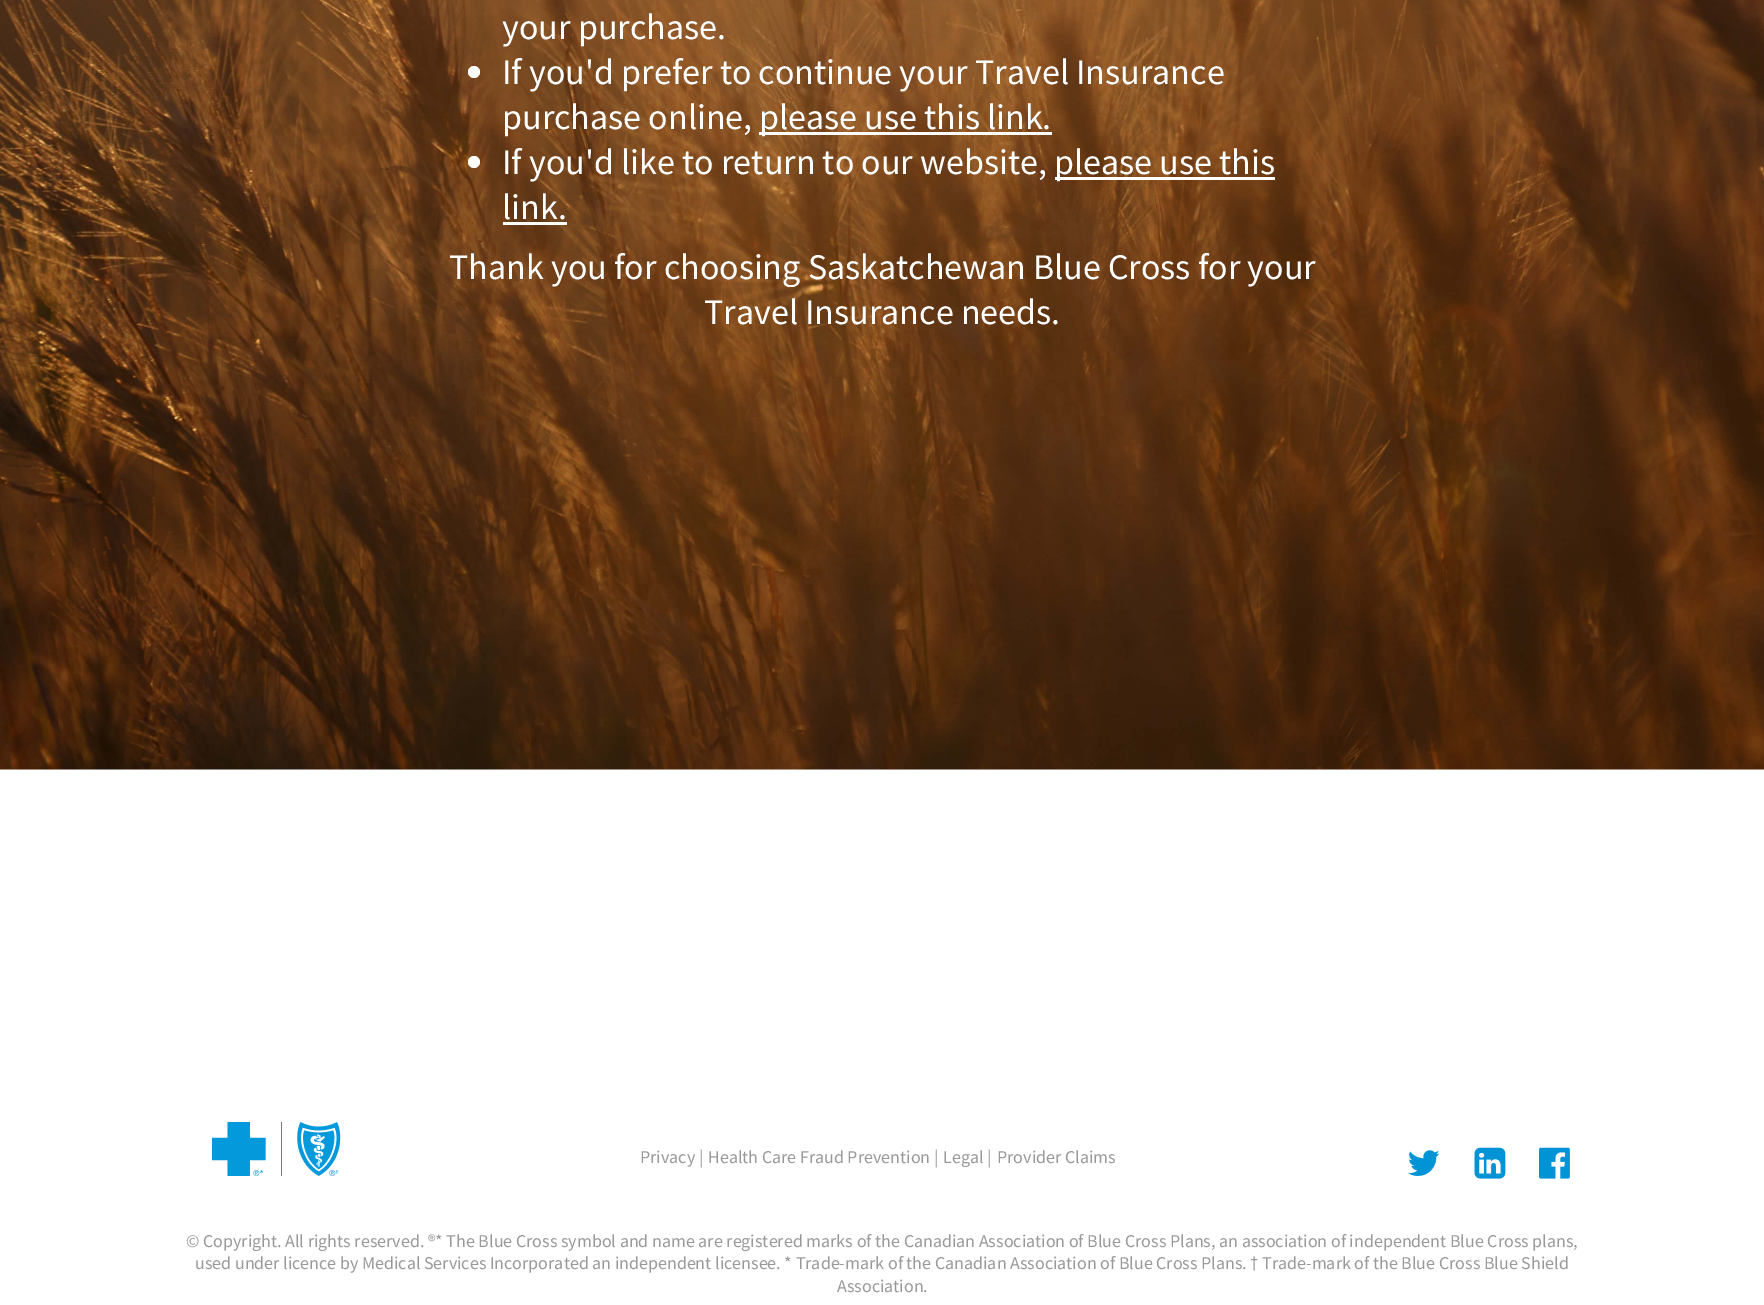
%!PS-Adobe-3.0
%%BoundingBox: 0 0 1764 1305
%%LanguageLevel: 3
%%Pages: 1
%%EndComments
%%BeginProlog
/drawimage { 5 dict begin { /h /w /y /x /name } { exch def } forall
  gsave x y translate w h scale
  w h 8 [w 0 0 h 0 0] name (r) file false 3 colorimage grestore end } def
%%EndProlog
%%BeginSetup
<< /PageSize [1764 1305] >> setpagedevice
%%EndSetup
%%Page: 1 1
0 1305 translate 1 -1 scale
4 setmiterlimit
1 setgray
0 0 1764 1305 rectfill
(images/1.raw) 0 0 1764 770 drawimage
newpath 474 72 6 0 360 arc closepath fill
759 132 293 3 rectfill
newpath 474 162 6 0 360 arc closepath fill
1055 177 220 3 rectfill
503 222 64 3 rectfill
(images/2.raw) 212 1122 129 54 drawimage
(images/3.raw) 1408 1150 32 26 drawimage
(images/4.raw) 1474 1147 32 32 drawimage
(images/5.raw) 1539 1147 31 32 drawimage
/SourceSansPro-Regular [36 0 0 -36 0 0] selectfont
502 39 moveto (your purchase.) show
502 84 moveto (If you'd prefer to continue your Travel Insurance) show
502 129 moveto (purchase online,) show
759 129 moveto (please use this link.) show
502 174 moveto (If you'd like to return to our website,) show
1054 174 moveto (please use this) show
502 219 moveto (link.) show
449 279 moveto (Thank you for choosing Saskatchewan Blue Cross for your) show
704 324 moveto (Travel Insurance needs.) show
/SourceSansPro-Regular [18 0 0 -18 0 0] selectfont
0.6 setgray
640 1163 moveto (Privacy |) show
708 1163 moveto (Health Care Fraud Prevention |) show
943 1163 moveto (Legal |) show
997 1163 moveto (Provider Claims) show
186 1247 moveto (© Copyright. All rights reserved. ®* The Blue Cross symbol and name are registered marks of the Canadian Association of Blue Cross Plans, an association of independent Blue Cross plans,) show
195 1269 moveto (used under licence by Medical Services Incorporated an independent licensee. * Trade-mark of the Canadian Association of Blue Cross Plans. † Trade-mark of the Blue Cross Blue Shield) show
837 1292 moveto (Association.) show
showpage
%%EOF
